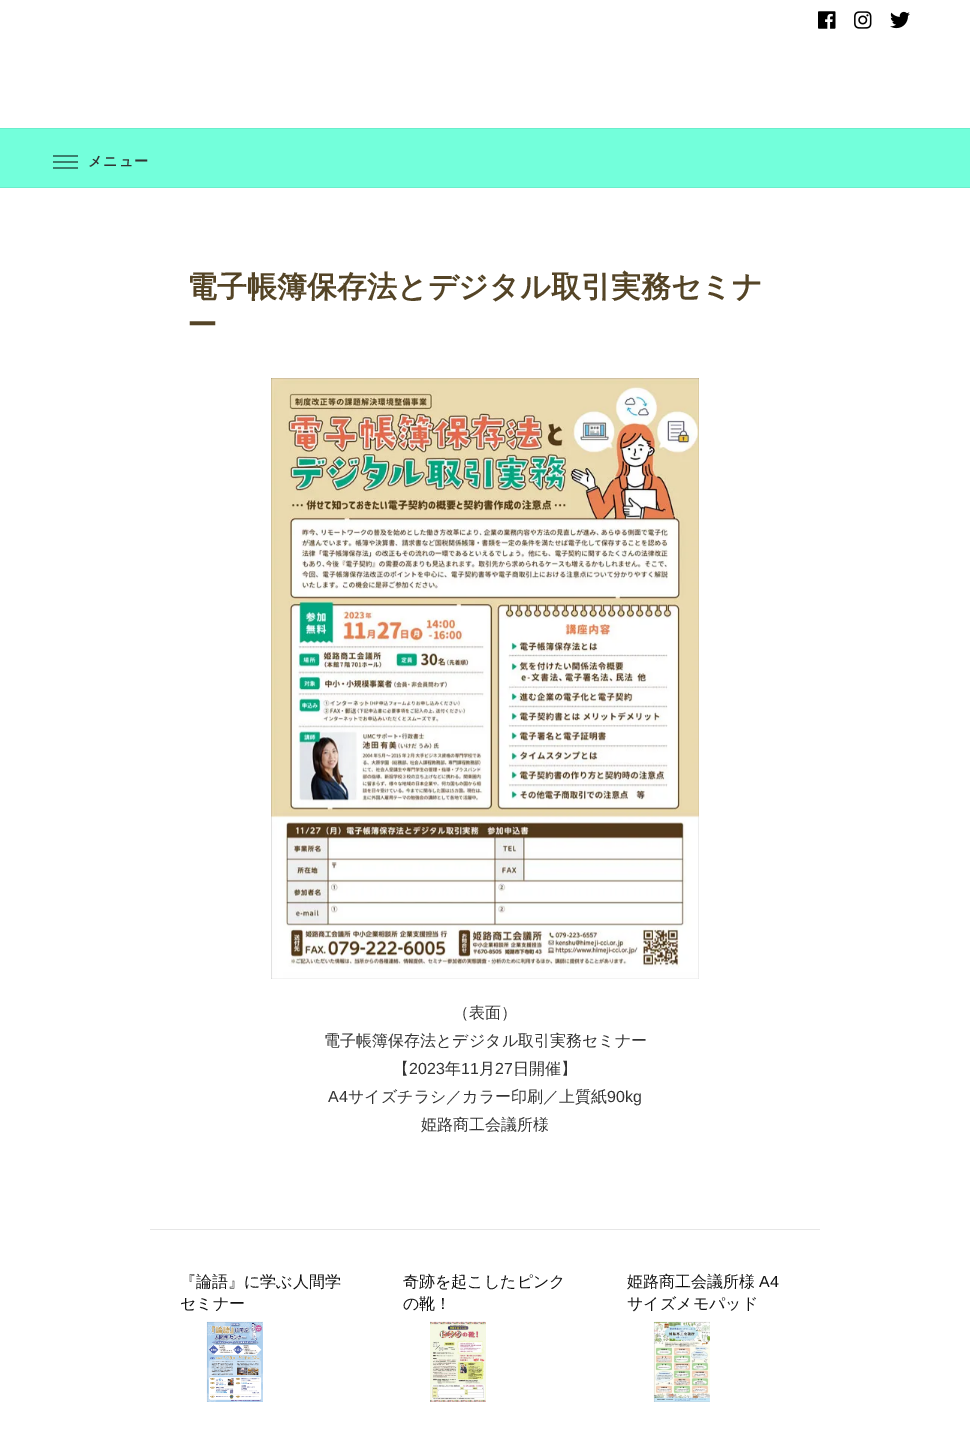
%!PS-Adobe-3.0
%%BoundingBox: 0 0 970 1447
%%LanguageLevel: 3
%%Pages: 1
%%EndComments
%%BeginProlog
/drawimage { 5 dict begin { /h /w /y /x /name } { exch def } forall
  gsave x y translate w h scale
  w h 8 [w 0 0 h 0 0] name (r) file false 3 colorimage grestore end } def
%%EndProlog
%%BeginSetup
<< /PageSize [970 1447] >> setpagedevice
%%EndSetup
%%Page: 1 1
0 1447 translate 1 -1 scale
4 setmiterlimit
1 setgray
0 0 970 1447 rectfill
(images/1.raw) 818 11 18 18 drawimage
(images/2.raw) 854 11 18 18 drawimage
(images/3.raw) 890 11 20 18 drawimage
0.451 1 0.859 setrgbcolor
0 129 970 58 rectfill
0.42 0.929 0.8 setrgbcolor
0 128 970 1 rectfill
0 187 970 1 rectfill
0.227 0.502 0.431 setrgbcolor
53 155 25 2 rectfill
53 161 25 2 rectfill
53 167 25 2 rectfill
(images/4.raw) 271 378 428 601 drawimage
0.902 setgray
150 1229 670 1 rectfill
(images/5.raw) 206 1321 57 81 drawimage
(images/6.raw) 430 1321 56 81 drawimage
(images/7.raw) 653 1321 57 81 drawimage
/WenQuanYiZenHei-Bold [14 0 0 -14 0 0] selectfont
0.2 setgray
88 166 moveto 1 0 (メニュー) ashow
/WenQuanYiZenHei-Bold [30 0 0 -30 0 0] selectfont
0.329 0.267 0.149 setrgbcolor
187 297 moveto (電子帳簿保存法とデジタル取引実務セミナ) show
187 335 moveto (ー) show
/WenQuanYiZenHei-Medium [16 0 0 -16 0 0] selectfont
0.2 setgray
453 1018 moveto (（表面）) show
324 1046 moveto (電子帳簿保存法とデジタル取引実務セミナー) show
393 1074 moveto (【) show
/LiberationSans-Regular [16 0 0 -16 0 0] selectfont
409 1074 moveto (2023) show
/WenQuanYiZenHei-Medium [16 0 0 -16 0 0] selectfont
445 1074 moveto (年) show
/LiberationSans-Regular [16 0 0 -16 0 0] selectfont
461 1074 moveto (11) show
/WenQuanYiZenHei-Medium [16 0 0 -16 0 0] selectfont
479 1074 moveto (月) show
/LiberationSans-Regular [16 0 0 -16 0 0] selectfont
495 1074 moveto (27) show
/WenQuanYiZenHei-Medium [16 0 0 -16 0 0] selectfont
513 1074 moveto (日開催】) show
/LiberationSans-Regular [16 0 0 -16 0 0] selectfont
328 1102 moveto (A4) show
/WenQuanYiZenHei-Medium [16 0 0 -16 0 0] selectfont
348 1102 moveto (サイズチラシ／カラー印刷／上質紙) show
/LiberationSans-Regular [16 0 0 -16 0 0] selectfont
607 1102 moveto (90kg) show
/WenQuanYiZenHei-Medium [16 0 0 -16 0 0] selectfont
421 1130 moveto (姫路商工会議所様) show
0.071 setgray
180 1287 moveto (『論語』に学ぶ人間学) show
180 1309 moveto (セミナー) show
403 1287 moveto (奇跡を起こしたピンク) show
403 1309 moveto (の靴！) show
627 1287 moveto (姫路商工会議所様) show
/LiberationSans-Regular [16 0 0 -16 0 0] selectfont
759 1287 moveto (A4) show
/WenQuanYiZenHei-Medium [16 0 0 -16 0 0] selectfont
627 1309 moveto (サイズメモパッド) show
showpage
%%EOF
